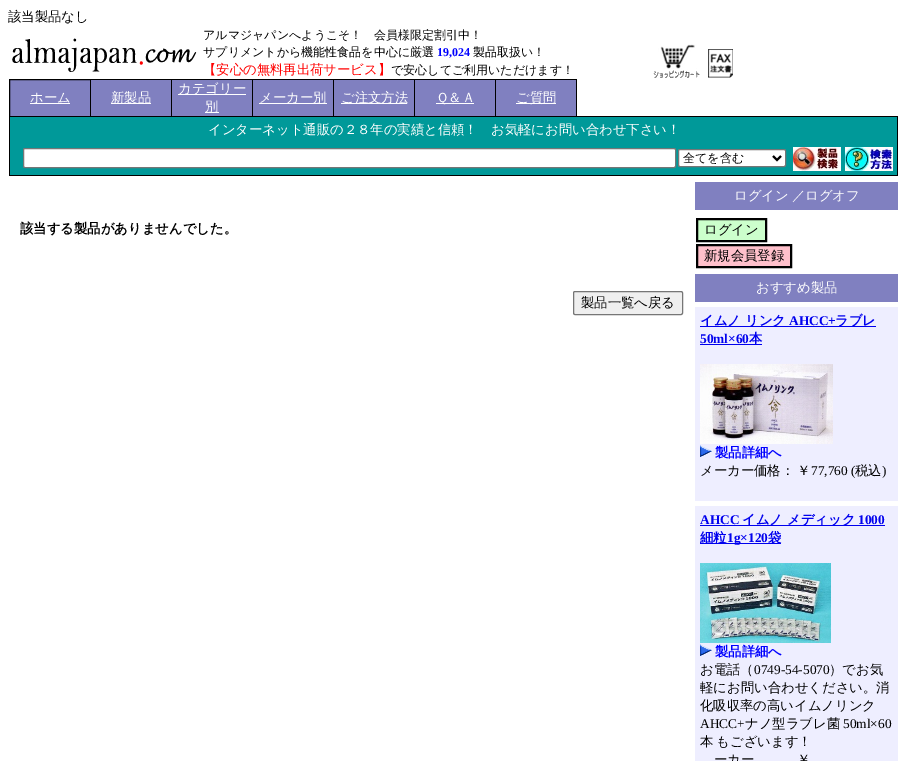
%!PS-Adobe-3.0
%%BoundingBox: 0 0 907 761
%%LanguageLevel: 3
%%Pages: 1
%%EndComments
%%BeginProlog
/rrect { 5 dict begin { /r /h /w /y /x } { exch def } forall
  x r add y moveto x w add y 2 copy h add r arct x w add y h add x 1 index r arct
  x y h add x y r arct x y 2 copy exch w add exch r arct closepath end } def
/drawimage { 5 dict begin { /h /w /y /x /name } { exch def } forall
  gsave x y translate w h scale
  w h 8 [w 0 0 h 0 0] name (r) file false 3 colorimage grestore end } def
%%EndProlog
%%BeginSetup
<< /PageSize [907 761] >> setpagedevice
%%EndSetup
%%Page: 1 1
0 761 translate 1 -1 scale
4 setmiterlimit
1 setgray
0 0 907 761 rectfill
(images/1.raw) 12 38 185 34 drawimage
(images/2.raw) 653 44 47 34 drawimage
(images/3.raw) 708 49 25 29 drawimage
0.502 0.502 0.753 setrgbcolor
newpath 9.5 79.5 moveto 90.5 79.5 lineto 90.5 116.5 lineto 9.5 116.5 lineto closepath gsave fill grestore
0 setgray
stroke
1 setgray
30 103 40 1 rectfill
0.502 0.502 0.753 setrgbcolor
91 80 80 36 rectfill
0 setgray
91 79 486 1 rectfill
171 79 1 38 rectfill
91 116 81 1 rectfill
1 setgray
111 103 40 1 rectfill
0.502 0.502 0.753 setrgbcolor
172 80 80 36 rectfill
0 setgray
252 79 1 38 rectfill
172 116 81 1 rectfill
1 setgray
178 94 68 1 rectfill
205 112 14 1 rectfill
0.502 0.502 0.753 setrgbcolor
253 80 80 36 rectfill
0 setgray
333 79 1 38 rectfill
253 116 81 1 rectfill
1 setgray
259 103 68 1 rectfill
0.502 0.502 0.753 setrgbcolor
334 80 80 36 rectfill
0 setgray
414 79 1 38 rectfill
334 116 81 1 rectfill
1 setgray
341 103 66 1 rectfill
0.502 0.502 0.753 setrgbcolor
415 80 80 36 rectfill
0 setgray
495 79 1 38 rectfill
415 116 81 1 rectfill
1 setgray
436 103 38 1 rectfill
0.502 0.502 0.753 setrgbcolor
496 80 80 36 rectfill
0 setgray
576 79 1 38 rectfill
496 116 402 1 rectfill
1 setgray
516 103 40 1 rectfill
0 0.6 0.6 setrgbcolor
10 117 887 58 rectfill
0 setgray
897 117 1 59 rectfill
9 117 1 26 rectfill
9 175 889 1 rectfill
9 143 1 33 rectfill
1 setgray
23.5 148.5 652 19 1.5 rrect gsave fill grestore
0.463 setgray
stroke
1 setgray
678.5 149.5 107 17 1.5 rrect gsave fill grestore
0.463 setgray
stroke
0 setgray
2 setlinewidth
newpath 773 156 moveto 777 160 lineto 781 156 lineto stroke
(images/4.raw) 793 147 48 24 drawimage
(images/5.raw) 845 147 48 24 drawimage
0.937 setgray
573.5 291.5 109 23 1.5 rrect gsave fill grestore
0.463 setgray
1 setlinewidth
stroke
0.502 0.502 0.753 setrgbcolor
695 182 203 28 rectfill
0.8 1 0.8 setrgbcolor
newpath 697 219 moveto 766 219 lineto 766 241 lineto 697 241 lineto closepath gsave fill grestore
0 setgray
2 setlinewidth
stroke
1 0.753 0.796 setrgbcolor
newpath 697 245 moveto 791 245 lineto 791 267 lineto 697 267 lineto closepath gsave fill grestore
0 setgray
stroke
0.502 0.502 0.753 setrgbcolor
695 274 203 28 rectfill
0.933 0.933 1 setrgbcolor
695 307 203 194 rectfill
0 0 0.933 setrgbcolor
700 326 176 1 rectfill
700 344 62 1 rectfill
(images/6.raw) 700 364 133 80 drawimage
(images/7.raw) 700 445 12 12 drawimage
0.933 0.933 1 setrgbcolor
695 506 203 255 rectfill
0 0 0.933 setrgbcolor
700 525 185 1 rectfill
700 543 81 1 rectfill
(images/8.raw) 700 563 131 80 drawimage
(images/7.raw) 700 644 12 12 drawimage
/WenQuanYiZenHei-Medium [13.35 0 0 -13.35 0 0] selectfont
0 setgray
8 21 moveto (該当製品なし) show
/WenQuanYiZenHei-Medium [12 0 0 -12 0 0] selectfont
203 39 moveto (アルマジャパンへようこそ！　会員様限定割引中！) show
203 56 moveto (サプリメントから機能性食品を中心に厳選) show
/LiberationSerif-Bold [12 0 0 -12 0 0] selectfont
0 0 1 setrgbcolor
437 56 moveto (19,024) show
/WenQuanYiZenHei-Medium [12 0 0 -12 0 0] selectfont
0 setgray
473 56 moveto (製品取扱い！) show
/WenQuanYiZenHei-Medium [13.35 0 0 -13.35 0 0] selectfont
1 0 0 setrgbcolor
203 74 moveto (【安心の無料再出荷サービス】) show
/WenQuanYiZenHei-Medium [12 0 0 -12 0 0] selectfont
0 setgray
391 74 moveto (で安心してご利用いただけます！) show
/WenQuanYiZenHei-Medium [13.35 0 0 -13.35 0 0] selectfont
1 setgray
30 102 moveto (ホーム) show
111 102 moveto (新製品) show
178 93 moveto (カテゴリー) show
205 111 moveto (別) show
259 102 moveto (メーカー別) show
341 102 moveto (ご注文方法) show
436 102 moveto (Ｑ＆Ａ) show
516 102 moveto (ご質問) show
208 134 moveto (インターネット通販の２８年の実績と信頼！　お気軽にお問い合わせ下さい！) show
/WenQuanYiZenHei-Medium [12 0 0 -12 0 0] selectfont
0 setgray
683 162 moveto (全てを含む) show
/WenQuanYiZenHei-Bold [13.35 0 0 -13.35 0 0] selectfont
20 233 moveto (該当する製品がありませんでした。) show
/WenQuanYiZenHei-Medium [13.35 0 0 -13.35 0 0] selectfont
581 307 moveto (製品一覧へ戻る) show
1 setgray
734 200 moveto -1 0 32 (ログイン ／ログオフ) widthshow
0 setgray
704 234 moveto (ログイン) show
704 260 moveto (新規会員登録) show
1 setgray
756 292 moveto (おすすめ製品) show
/WenQuanYiZenHei-Bold [13.35 0 0 -13.35 0 0] selectfont
0 0 0.933 setrgbcolor
700 325 moveto (イムノ リンク) show
/LiberationSerif-Bold [13.35 0 0 -13.35 0 0] selectfont
789 325 moveto (AHCC+) show
/WenQuanYiZenHei-Bold [13.35 0 0 -13.35 0 0] selectfont
835 325 moveto (ラブレ) show
/LiberationSerif-Bold [13.35 0 0 -13.35 0 0] selectfont
700 343 moveto (50ml×60) show
/WenQuanYiZenHei-Bold [13.35 0 0 -13.35 0 0] selectfont
749 343 moveto (本) show
0 0 1 setrgbcolor
715 457 moveto (製品詳細へ) show
/WenQuanYiZenHei-Medium [13.35 0 0 -13.35 0 0] selectfont
0 setgray
700 475 moveto (メーカー価格：) show
797 475 moveto (￥) show
/LiberationSerif-Regular [13.35 0 0 -13.35 0 0] selectfont
811 475 moveto (77,760 \() show
/WenQuanYiZenHei-Medium [13.35 0 0 -13.35 0 0] selectfont
855 475 moveto (税込) show
/LiberationSerif-Regular [13.35 0 0 -13.35 0 0] selectfont
882 475 moveto (\)) show
/LiberationSerif-Bold [13.35 0 0 -13.35 0 0] selectfont
0 0 0.933 setrgbcolor
700 524 moveto (AHCC) show
/WenQuanYiZenHei-Bold [13.35 0 0 -13.35 0 0] selectfont
742 524 moveto (イムノ メディック) show
/LiberationSerif-Bold [13.35 0 0 -13.35 0 0] selectfont
858 524 moveto (1000) show
/WenQuanYiZenHei-Bold [13.35 0 0 -13.35 0 0] selectfont
700 542 moveto (細粒) show
/LiberationSerif-Bold [13.35 0 0 -13.35 0 0] selectfont
727 542 moveto (1g×120) show
/WenQuanYiZenHei-Bold [13.35 0 0 -13.35 0 0] selectfont
768 542 moveto (袋) show
0 0 1 setrgbcolor
715 656 moveto (製品詳細へ) show
/WenQuanYiZenHei-Medium [13.35 0 0 -13.35 0 0] selectfont
0 setgray
700 674 moveto (お電話（) show
/LiberationSerif-Regular [13.35 0 0 -13.35 0 0] selectfont
754 674 moveto (0749-54-5070) show
/WenQuanYiZenHei-Medium [13.35 0 0 -13.35 0 0] selectfont
829 674 moveto (）でお気) show
700 692 moveto (軽にお問い合わせください。消) show
700 710 moveto (化吸収率の高いイムノリンク) show
/LiberationSerif-Regular [13.35 0 0 -13.35 0 0] selectfont
700 728 moveto (AHCC+) show
/WenQuanYiZenHei-Medium [13.35 0 0 -13.35 0 0] selectfont
745 728 moveto (ナノ型ラブレ菌) show
/LiberationSerif-Regular [13.35 0 0 -13.35 0 0] selectfont
843 728 moveto (50ml×60) show
/WenQuanYiZenHei-Medium [13.35 0 0 -13.35 0 0] selectfont
700 746 moveto -1 0 32 (本 もございます！) widthshow
714 764 moveto (ーカー) show
797 764 moveto (￥) show
showpage
%%EOF
